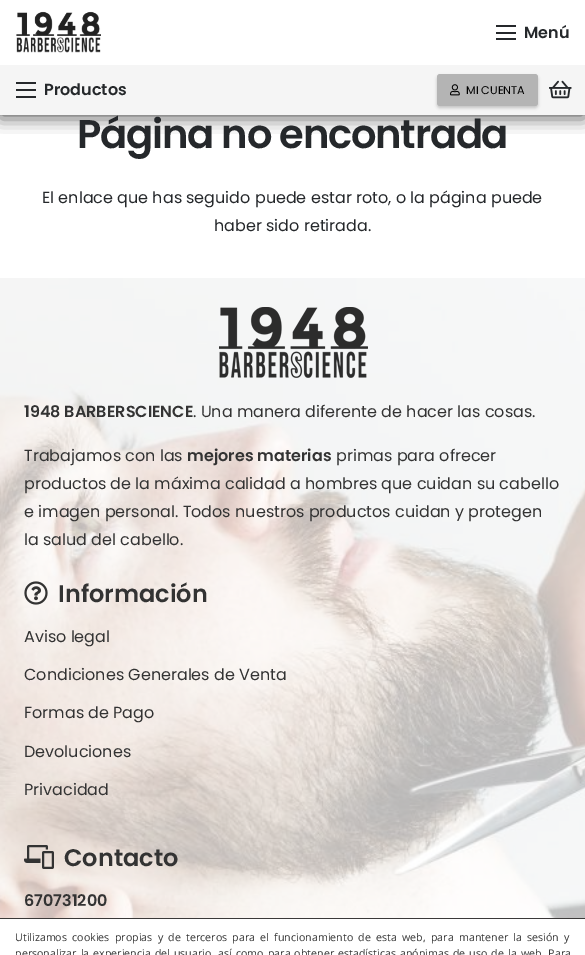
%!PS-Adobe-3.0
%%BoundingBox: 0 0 585 955
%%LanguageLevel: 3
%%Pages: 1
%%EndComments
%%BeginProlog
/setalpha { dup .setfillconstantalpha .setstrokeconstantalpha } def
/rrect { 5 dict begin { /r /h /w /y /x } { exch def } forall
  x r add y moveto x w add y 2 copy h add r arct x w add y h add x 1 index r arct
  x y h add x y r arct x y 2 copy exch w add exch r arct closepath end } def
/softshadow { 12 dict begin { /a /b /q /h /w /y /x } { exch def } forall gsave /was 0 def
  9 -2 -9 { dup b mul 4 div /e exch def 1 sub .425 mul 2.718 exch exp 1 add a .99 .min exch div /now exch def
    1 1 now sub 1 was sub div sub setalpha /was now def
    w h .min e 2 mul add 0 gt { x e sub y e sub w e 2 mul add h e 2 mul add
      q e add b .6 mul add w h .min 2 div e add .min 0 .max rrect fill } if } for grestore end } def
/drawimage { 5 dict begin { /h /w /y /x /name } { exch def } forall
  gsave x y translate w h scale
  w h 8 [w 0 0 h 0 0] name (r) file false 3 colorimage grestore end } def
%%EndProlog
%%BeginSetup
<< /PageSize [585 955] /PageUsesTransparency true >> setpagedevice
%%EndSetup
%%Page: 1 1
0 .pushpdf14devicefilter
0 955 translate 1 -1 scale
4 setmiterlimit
1 setgray
0 0 585 955 rectfill
gsave
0 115 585 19 rectclip
0 setgray
0 4 585 115 0 8.5 0.54 softshadow
grestore
(images/1.raw) 16 11 85 42 drawimage
0.145 0.157 0.169 setrgbcolor
496 32 20 2 rectfill
496 25 20 2 rectfill
496 38 20 2 rectfill
0.08 setalpha
0 setgray
0 115 585 1 rectfill
1 setalpha
0.961 setgray
0 65 585 50 rectfill
0.145 0.157 0.169 setrgbcolor
16 89 20 2 rectfill
16 82 20 2 rectfill
16 96 20 2 rectfill
0 setgray
437 76 101 32 3 1.5 0.2 softshadow
0.706 setgray
437 74 101 32 3 rrect fill
(images/2.raw) 450 84 10 12 drawimage
(images/3.raw) 549 80 23 19 drawimage
(images/4.raw) 0 278 585 640 drawimage
(images/5.raw) 219 307 149 71 drawimage
(images/6.raw) 24 581 24 24 drawimage
(images/7.raw) 24 845 30 24 drawimage
0.231 0.224 0.224 setrgbcolor
0 918 585 1 rectfill
/Poppins-SemiBold [16 0 0 -16 0 0] selectfont
0.145 0.157 0.169 setrgbcolor
524 38 moveto (Menú) show
44 95 moveto (Productos) show
/Poppins-Regular [11.25 0 0 -11.25 0 0] selectfont
0 setgray
466 94 moveto (MI CUENTA) show
/Poppins-SemiBold [40 0 0 -40 0 0] selectfont
0.145 0.157 0.169 setrgbcolor
77 148 moveto -1.2 0 (Página no encontrada) ashow
/Poppins-Regular [16 0 0 -16 0 0] selectfont
42 203 moveto (El enlace que has seguido puede estar roto, o la página puede) show
214 231 moveto (haber sido retirada.) show
/Poppins-SemiBold [16 0 0 -16 0 0] selectfont
0.2 setgray
24 417 moveto (1948 BARBERSCIENCE) show
/Poppins-Regular [16 0 0 -16 0 0] selectfont
193 417 moveto (. Una manera diferente de hacer las cosas.) show
24 461 moveto (Trabajamos con las) show
/Poppins-SemiBold [16 0 0 -16 0 0] selectfont
187 461 moveto (mejores materias) show
/Poppins-Regular [16 0 0 -16 0 0] selectfont
336 461 moveto (primas para ofrecer) show
24 489 moveto (productos de la máxima calidad a hombres que cuidan su cabello) show
24 517 moveto (e imagen personal. Todos nuestros productos cuidan y protegen) show
24 545 moveto (la salud del cabello.) show
/Poppins-SemiBold [24 0 0 -24 0 0] selectfont
58 602 moveto (Información) show
/Poppins-Regular [16 0 0 -16 0 0] selectfont
24 642 moveto (Aviso legal) show
24 680 moveto (Condiciones Generales de Venta) show
24 718 moveto (Formas de Pago) show
24 757 moveto (Devoluciones) show
24 795 moveto (Privacidad) show
/Poppins-SemiBold [24 0 0 -24 0 0] selectfont
64 866 moveto (Contacto) show
/Poppins-SemiBold [16 0 0 -16 0 0] selectfont
24 906 moveto (670731200) show
/OpenSans-Regular [10.67 0 0 -10.67 0 0] selectfont
15 941 moveto 2.5 0 32 (Utilizamos cookies propias y de terceros para el funcionamiento de esta web, para mantener la sesión y) widthshow
15 957 moveto 1.25 0 32 (personalizar la experiencia del usuario, así como para obtener estadísticas anónimas de uso de la web. Para) widthshow
.poppdf14devicefilter showpage
%%EOF
